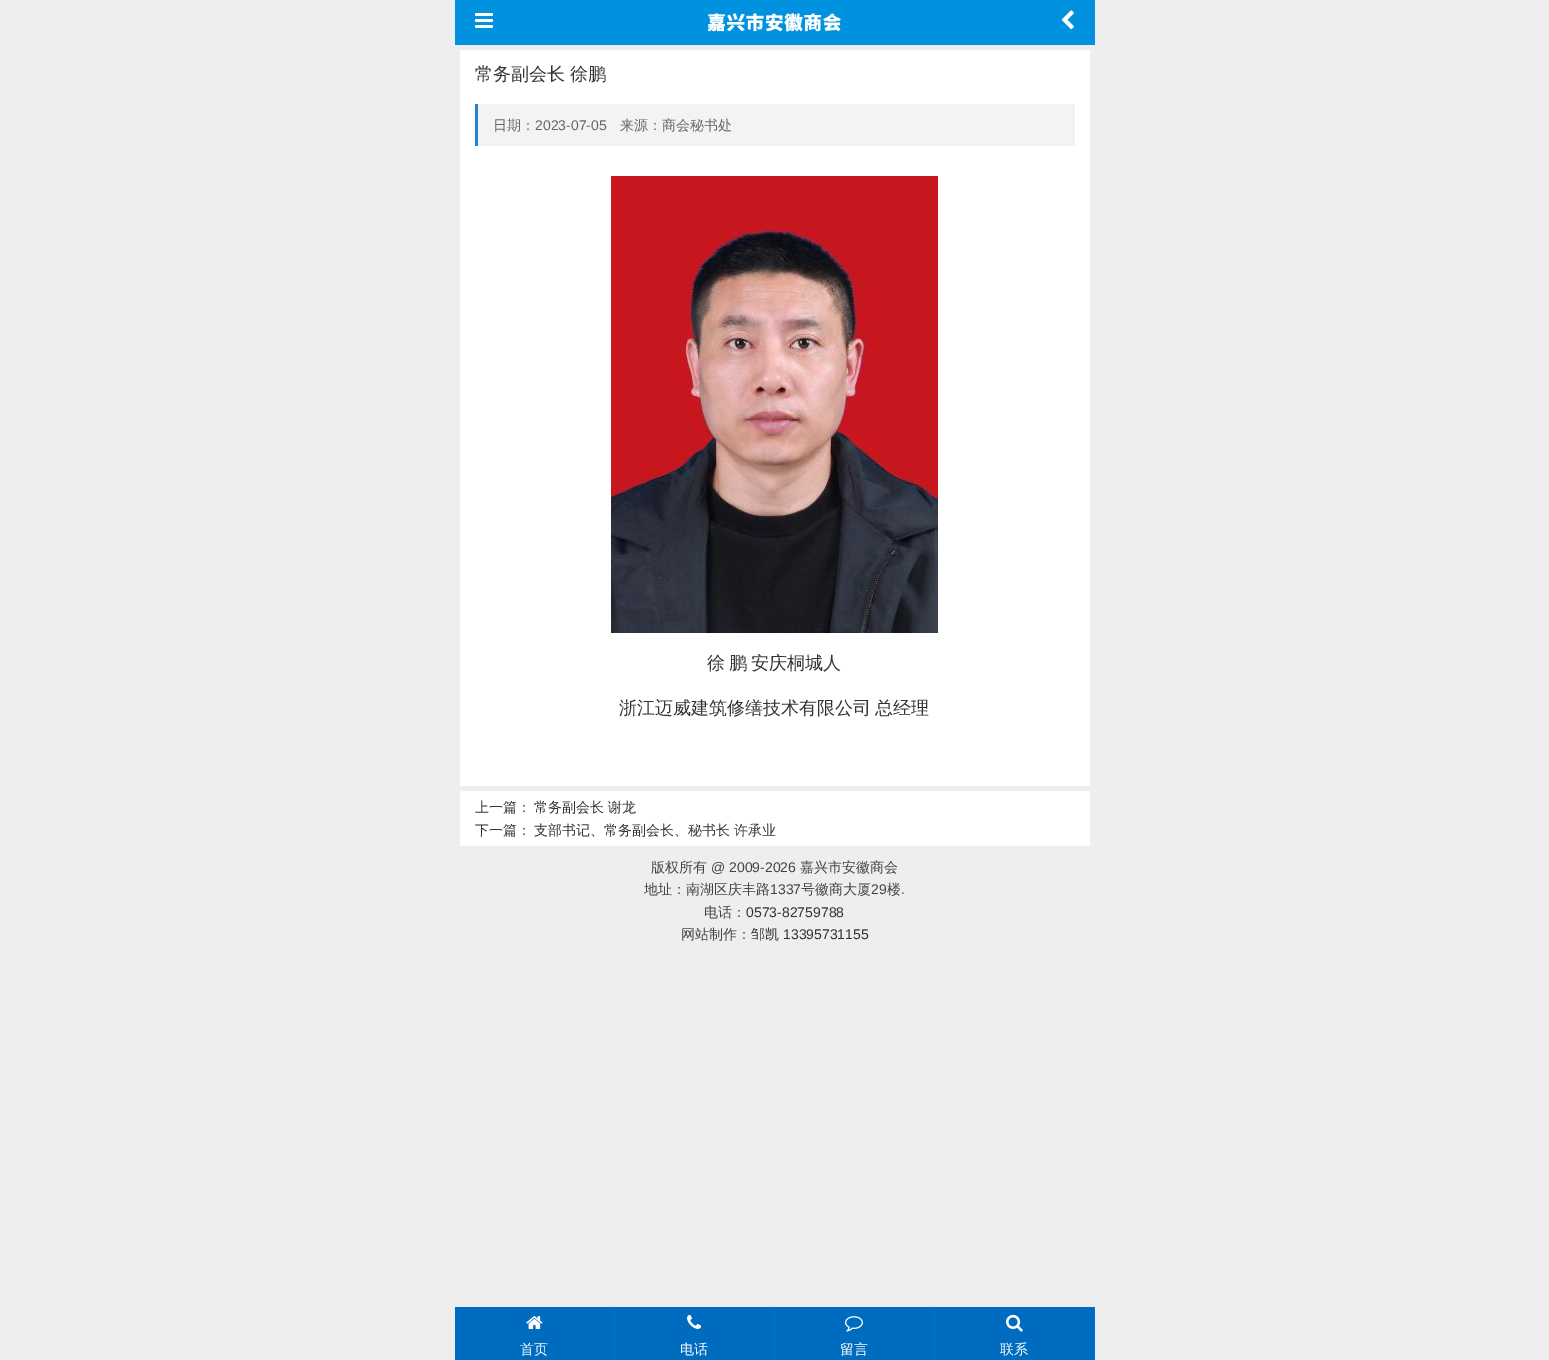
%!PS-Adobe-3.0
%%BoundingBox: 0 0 1549 1360
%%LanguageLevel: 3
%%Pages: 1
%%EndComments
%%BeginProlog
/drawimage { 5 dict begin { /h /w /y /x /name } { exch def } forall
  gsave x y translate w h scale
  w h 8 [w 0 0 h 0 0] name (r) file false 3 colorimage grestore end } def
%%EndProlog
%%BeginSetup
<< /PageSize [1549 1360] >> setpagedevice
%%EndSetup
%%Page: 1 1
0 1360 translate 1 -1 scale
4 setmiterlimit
0.933 setgray
0 0 1549 1360 rectfill
0 0.573 0.871 setrgbcolor
455 0 640 45 rectfill
(images/1.raw) 475 13 18 15 drawimage
(images/2.raw) 707 13 134 19 drawimage
(images/3.raw) 1061 10 13 20 drawimage
1 setgray
460 50 630 736 rectfill
0.953 setgray
478 104 597 42 rectfill
0.137 0.518 0.835 setrgbcolor
475 104 3 42 rectfill
(images/4.raw) 611 176 327 457 drawimage
1 setgray
460 791 630 55 rectfill
0 0.424 0.753 setrgbcolor
455 1307 639 53 rectfill
0 0.459 0.816 setrgbcolor
614 1307 1 53 rectfill
(images/5.raw) 526 1316 17 13 drawimage
774 1307 1 53 rectfill
(images/6.raw) 687 1314 15 15 drawimage
934 1307 1 53 rectfill
(images/7.raw) 845 1316 18 16 drawimage
1094 1307 1 53 rectfill
(images/8.raw) 1006 1314 17 18 drawimage
/WenQuanYiZenHei-Medium [18 0 0 -18 0 0] selectfont
0.2 setgray
475 80 moveto (常务副会长) show
570 80 moveto (徐鹏) show
/WenQuanYiZenHei-Medium [14 0 0 -14 0 0] selectfont
0.4 setgray
493 130 moveto (日期：) show
/LiberationSans-Regular [14 0 0 -14 0 0] selectfont
535 130 moveto (2023-07-05) show
/WenQuanYiZenHei-Medium [14 0 0 -14 0 0] selectfont
620 130 moveto (来源：商会秘书处) show
/WenQuanYiZenHei-Medium [18 0 0 -18 0 0] selectfont
0.2 setgray
707 669 moveto -1 0 32 (徐 鹏) widthshow
751 669 moveto (安庆桐城人) show
619 714 moveto -1 0 32 (浙江迈威建筑修缮技术有限公司 总经理) widthshow
/WenQuanYiZenHei-Medium [14 0 0 -14 0 0] selectfont
475 812 moveto (上一篇：) show
534 812 moveto (常务副会长 谢龙) show
475 835 moveto (下一篇：) show
534 835 moveto (支部书记、常务副会长、秘书长 许承业) show
0.267 setgray
651 872 moveto (版权所有) show
/LiberationSans-Regular [14 0 0 -14 0 0] selectfont
711 872 moveto (@ 2009-2026) show
/WenQuanYiZenHei-Medium [14 0 0 -14 0 0] selectfont
800 872 moveto (嘉兴市安徽商会) show
644 894 moveto (地址：南湖区庆丰路) show
/LiberationSans-Regular [14 0 0 -14 0 0] selectfont
770 894 moveto (1337) show
/WenQuanYiZenHei-Medium [14 0 0 -14 0 0] selectfont
801 894 moveto (号徽商大厦) show
/LiberationSans-Regular [14 0 0 -14 0 0] selectfont
871 894 moveto (29) show
/WenQuanYiZenHei-Medium [14 0 0 -14 0 0] selectfont
887 894 moveto (楼) show
/LiberationSans-Regular [14 0 0 -14 0 0] selectfont
901 894 moveto (.) show
/WenQuanYiZenHei-Medium [14 0 0 -14 0 0] selectfont
704 917 moveto (电话：) show
/LiberationSans-Regular [14 0 0 -14 0 0] selectfont
0.2 setgray
746 917 moveto (0573-82759788) show
/WenQuanYiZenHei-Medium [14 0 0 -14 0 0] selectfont
0.267 setgray
681 939 moveto (网站制作：) show
0.2 setgray
751 939 moveto (邹凯) show
/LiberationSans-Regular [14 0 0 -14 0 0] selectfont
783 939 moveto (13395731155) show
/WenQuanYiZenHei-Medium [14 0 0 -14 0 0] selectfont
1 setgray
520 1354 moveto (首页) show
680 1354 moveto (电话) show
840 1354 moveto (留言) show
1000 1354 moveto (联系) show
showpage
%%EOF
